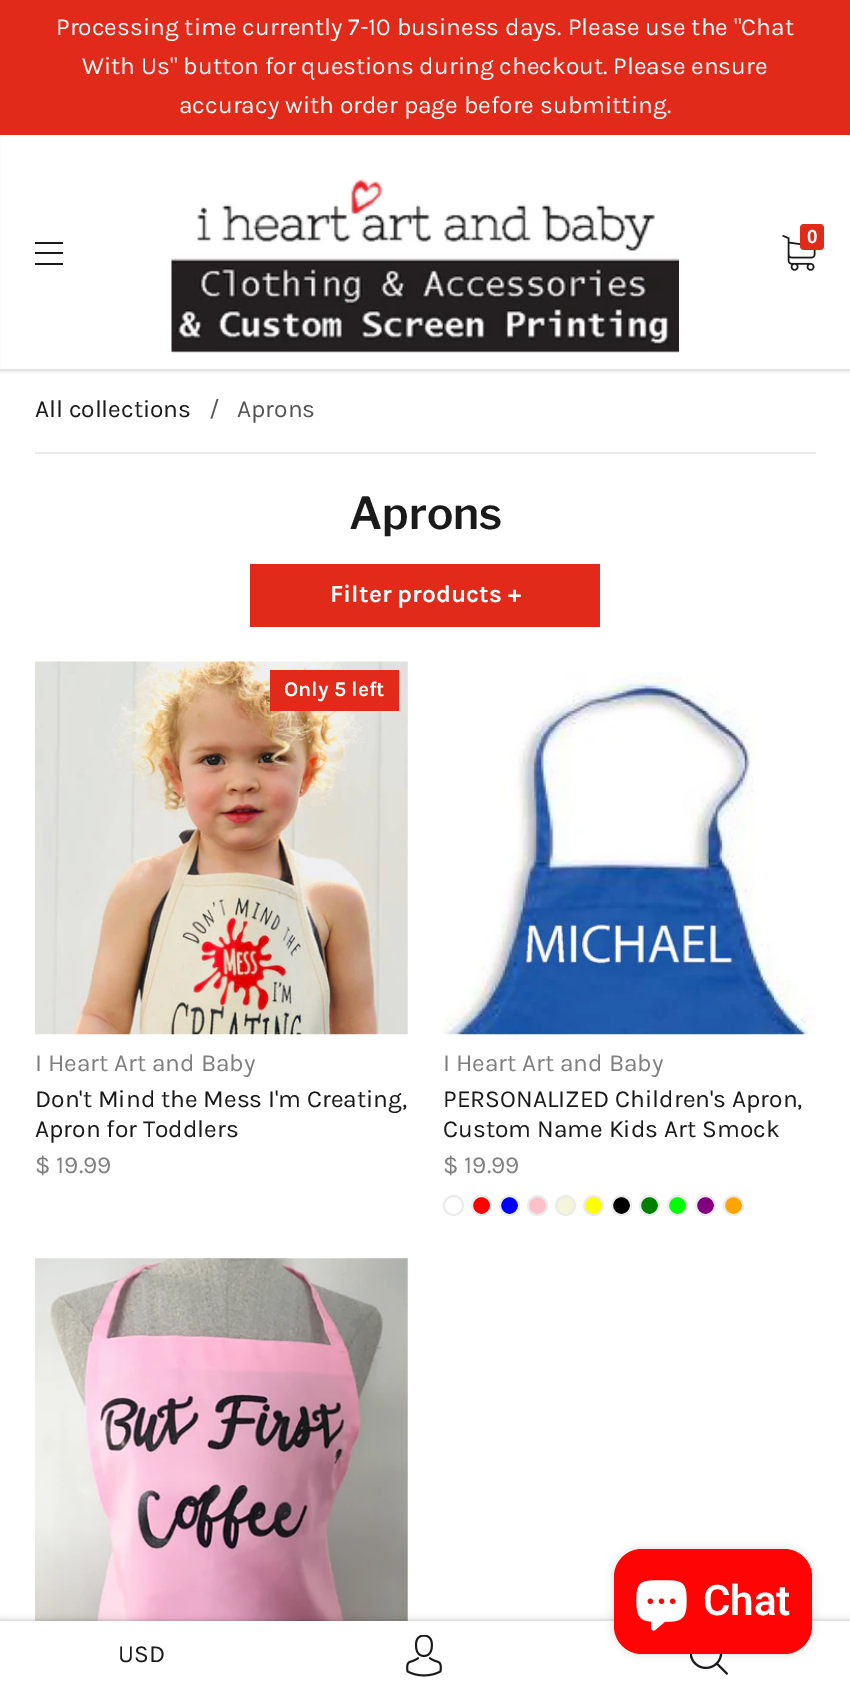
%!PS-Adobe-3.0
%%BoundingBox: 0 0 850 1690
%%LanguageLevel: 3
%%Pages: 1
%%EndComments
%%BeginProlog
/setalpha { dup .setfillconstantalpha .setstrokeconstantalpha } def
/rrect { 5 dict begin { /r /h /w /y /x } { exch def } forall
  x r add y moveto x w add y 2 copy h add r arct x w add y h add x 1 index r arct
  x y h add x y r arct x y 2 copy exch w add exch r arct closepath end } def
/softshadow { 12 dict begin { /a /b /q /h /w /y /x } { exch def } forall gsave /was 0 def
  9 -2 -9 { dup b mul 4 div /e exch def 1 sub .425 mul 2.718 exch exp 1 add a .99 .min exch div /now exch def
    1 1 now sub 1 was sub div sub setalpha /was now def
    w h .min e 2 mul add 0 gt { x e sub y e sub w e 2 mul add h e 2 mul add
      q e add b .6 mul add w h .min 2 div e add .min 0 .max rrect fill } if } for grestore end } def
/drawimage { 5 dict begin { /h /w /y /x /name } { exch def } forall
  gsave x y translate w h scale
  w h 8 [w 0 0 h 0 0] name (r) file false 3 colorimage grestore end } def
%%EndProlog
%%BeginSetup
<< /PageSize [850 1690] /PageUsesTransparency true >> setpagedevice
%%EndSetup
%%Page: 1 1
0 .pushpdf14devicefilter
0 1690 translate 1 -1 scale
4 setmiterlimit
1 setgray
0 0 850 1690 rectfill
0.949 setgray
2 setlinewidth
-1 -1 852 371 rectstroke
gsave
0 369 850 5 rectclip
0 setgray
0 2 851 369 0 3.5 0.1 softshadow
grestore
0.882 0.165 0.098 setrgbcolor
0 0 850 135 rectfill
(images/1.raw) 171 178 508 175 drawimage
(images/2.raw) 782 235 34 36 drawimage
800 224 24 26 4 rrect fill
0.102 setgray
35 242 28 2 rectfill
35 252 28 2 rectfill
35 263 28 2 rectfill
0.922 setgray
35 452 781 2 rectfill
0.882 0.165 0.098 setrgbcolor
250 564 350 63 rectfill
(images/3.raw) 35 661 373 374 drawimage
270 670 129 41 rectfill
(images/4.raw) 443 672 373 363 drawimage
0.922 setgray
newpath 453.5 1205.5 9.5 0 360 arc closepath stroke
1 0 0 setrgbcolor
newpath 481.5 1205.5 9.5 0 360 arc closepath gsave fill grestore
0.922 setgray
stroke
0 0 1 setrgbcolor
newpath 509.5 1205.5 9.5 0 360 arc closepath gsave fill grestore
0.922 setgray
stroke
1 0.753 0.796 setrgbcolor
newpath 537.5 1205.5 9.5 0 360 arc closepath gsave fill grestore
0.922 setgray
stroke
0.961 0.961 0.863 setrgbcolor
newpath 565.5 1205.5 9.5 0 360 arc closepath gsave fill grestore
0.922 setgray
stroke
1 1 0 setrgbcolor
newpath 593.5 1205.5 9.5 0 360 arc closepath gsave fill grestore
0.922 setgray
stroke
0 setgray
newpath 621.5 1205.5 9.5 0 360 arc closepath gsave fill grestore
0.922 setgray
stroke
0 0.502 0 setrgbcolor
newpath 649.5 1205.5 9.5 0 360 arc closepath gsave fill grestore
0.922 setgray
stroke
0 1 0 setrgbcolor
newpath 677.5 1205.5 9.5 0 360 arc closepath gsave fill grestore
0.922 setgray
stroke
0.502 0 0.502 setrgbcolor
newpath 705.5 1205.5 9.5 0 360 arc closepath gsave fill grestore
0.922 setgray
stroke
1 0.647 0 setrgbcolor
newpath 733.5 1205.5 9.5 0 360 arc closepath gsave fill grestore
0.922 setgray
stroke
(images/5.raw) 35 1258 373 363 drawimage
0.05 setalpha
0 setgray
-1 1620 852 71 rectstroke
1 setalpha
0 1619 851 70 0 3.5 0.1 softshadow
1 setgray
0 1621 850 69 rectfill
(images/8.raw) 690 1654 38 21 drawimage
0 setgray
614 1549 198 105 28 4.5 0.15 softshadow
1 0.016 0.016 setrgbcolor
614 1549 198 105 28 rrect fill
(images/6.raw) 636 1580 51 51 drawimage
(images/7.raw) 406 1635 36 42 drawimage
/Karla-Regular [24.5 0 0 -24.5 0 0] selectfont
1 setgray
56 35 moveto (Processing time currently 7-10 business days. Please use the "Chat) show
82 74 moveto (With Us" button for questions during checkout. Please ensure) show
179 113 moveto (accuracy with order page before submitting.) show
/LiberationSans-Bold [19 0 0 -19 0 0] selectfont
807 243 moveto (0) show
/Karla-Regular [24.5 0 0 -24.5 0 0] selectfont
0.102 setgray
35 417 moveto (All collections) show
0.333 setgray
209 417 moveto (/) show
237 417 moveto (Aprons) show
/LibreFranklin-SemiBold [44 0 0 -44 0 0] selectfont
0.102 setgray
349 529 moveto (Aprons) show
/Karla-Bold [24.5 0 0 -24.5 0 0] selectfont
1 setgray
330 602 moveto (Filter products +) show
/Karla-Bold [21 0 0 -21 0 0] selectfont
284 696 moveto (Only 5 left) show
/Karla-Regular [24.5 0 0 -24.5 0 0] selectfont
0.498 setgray
35 1071 moveto (I Heart Art and Baby) show
0.102 setgray
35 1107 moveto (Don't Mind the Mess I'm Creating,) show
35 1137 moveto (Apron for Toddlers) show
0.498 setgray
35 1173 moveto ($ 19.99) show
443 1071 moveto (I Heart Art and Baby) show
0.102 setgray
443 1107 moveto (PERSONALIZED Children's Apron,) show
443 1137 moveto (Custom Name Kids Art Smock) show
0.498 setgray
443 1173 moveto ($ 19.99) show
/Roboto-SemiBold [42 0 0 -42 0 0] selectfont
1 setgray
703 1615 moveto (Chat) show
/Karla-Regular [24.5 0 0 -24.5 0 0] selectfont
0.102 setgray
118 1662 moveto (USD) show
.poppdf14devicefilter showpage
%%EOF
